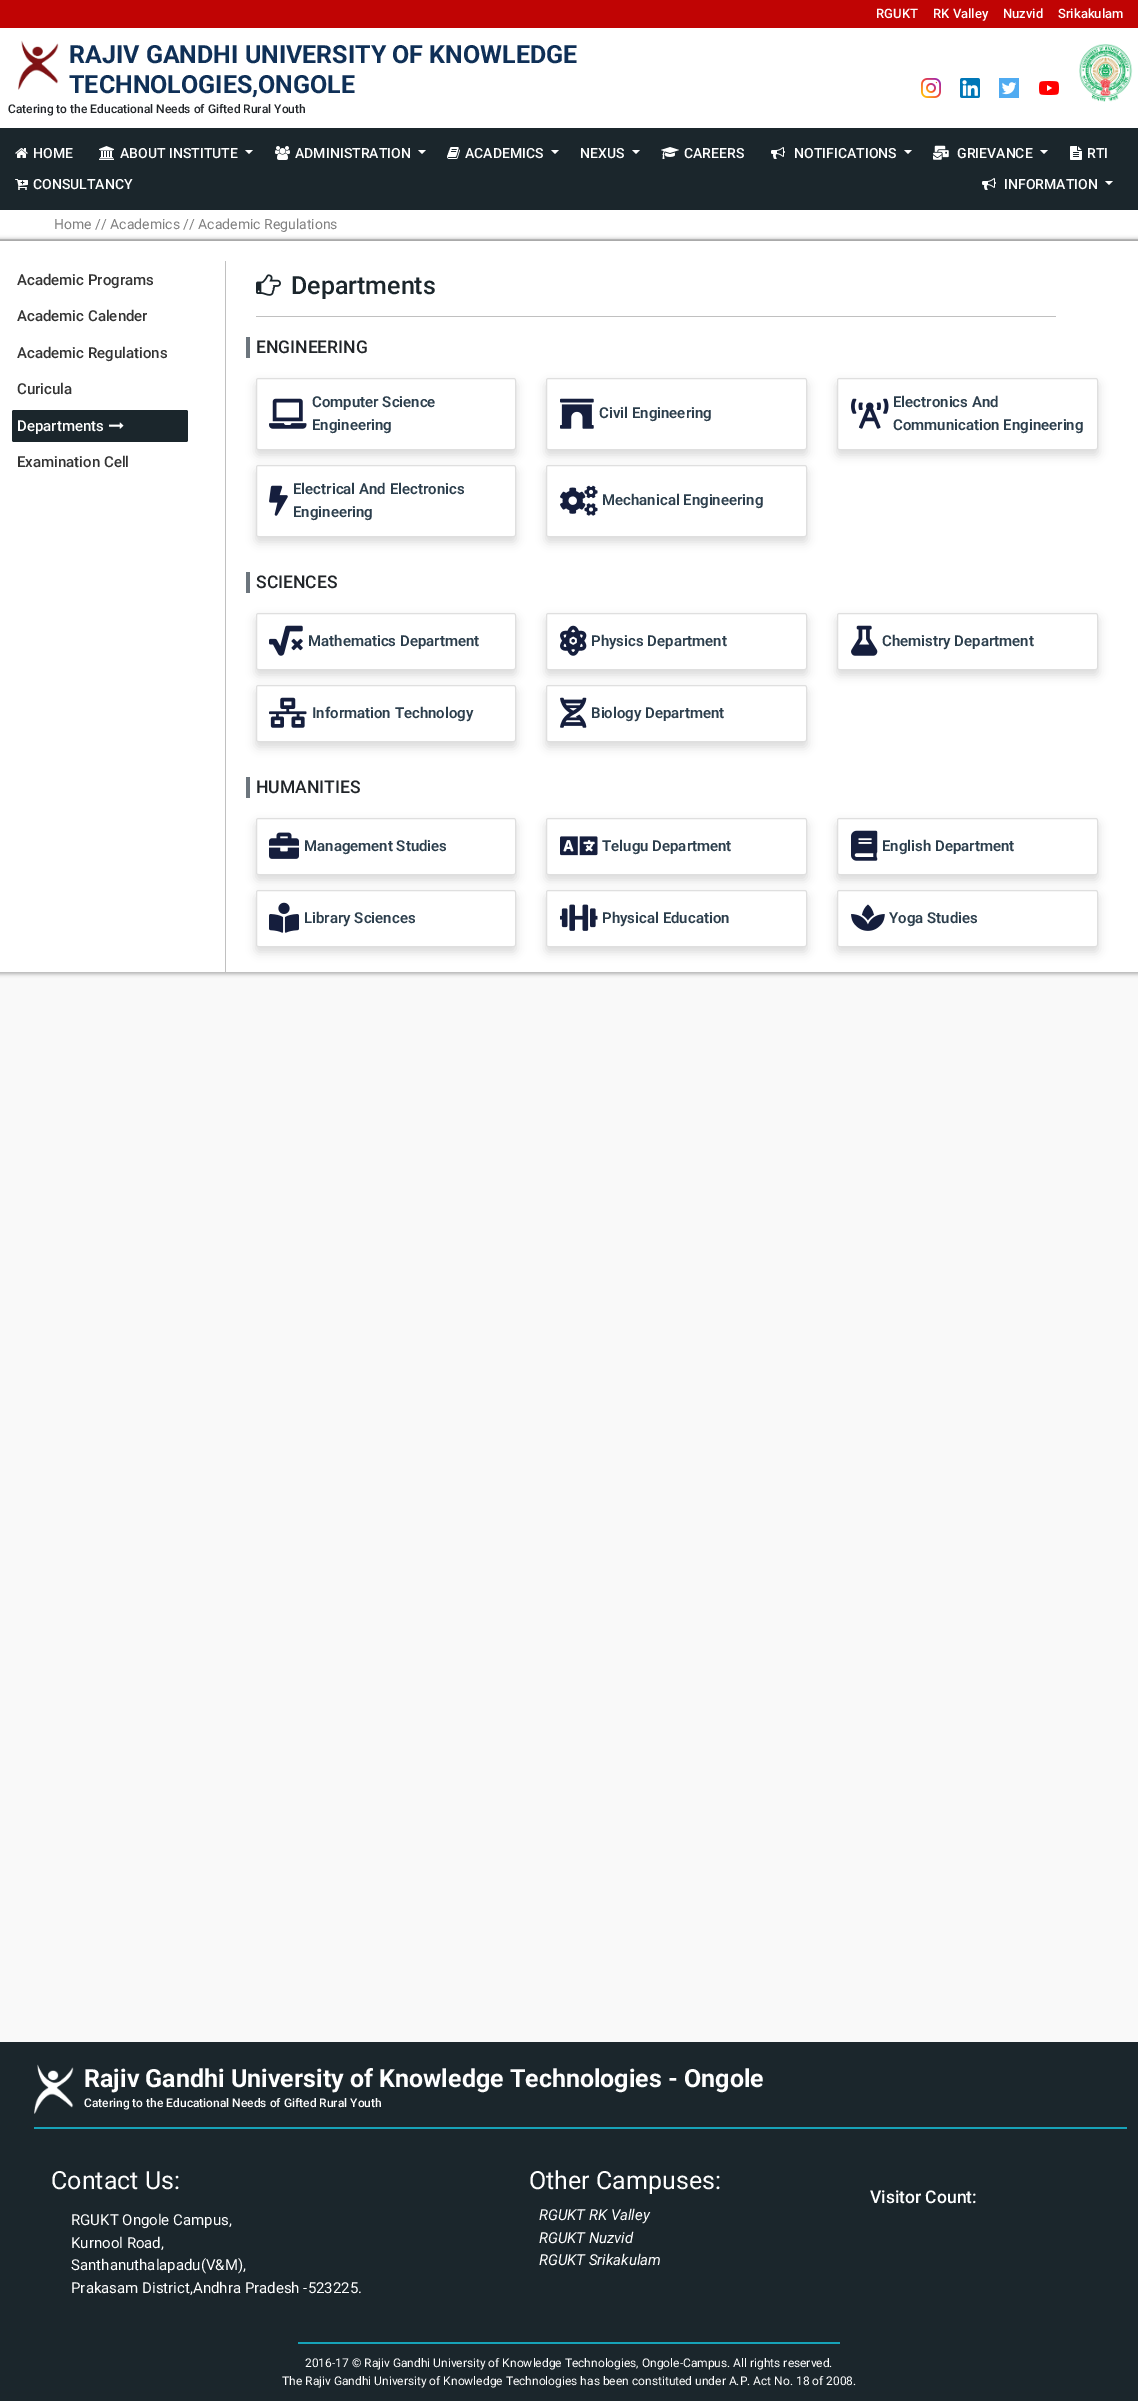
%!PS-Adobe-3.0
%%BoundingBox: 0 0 1138 2401
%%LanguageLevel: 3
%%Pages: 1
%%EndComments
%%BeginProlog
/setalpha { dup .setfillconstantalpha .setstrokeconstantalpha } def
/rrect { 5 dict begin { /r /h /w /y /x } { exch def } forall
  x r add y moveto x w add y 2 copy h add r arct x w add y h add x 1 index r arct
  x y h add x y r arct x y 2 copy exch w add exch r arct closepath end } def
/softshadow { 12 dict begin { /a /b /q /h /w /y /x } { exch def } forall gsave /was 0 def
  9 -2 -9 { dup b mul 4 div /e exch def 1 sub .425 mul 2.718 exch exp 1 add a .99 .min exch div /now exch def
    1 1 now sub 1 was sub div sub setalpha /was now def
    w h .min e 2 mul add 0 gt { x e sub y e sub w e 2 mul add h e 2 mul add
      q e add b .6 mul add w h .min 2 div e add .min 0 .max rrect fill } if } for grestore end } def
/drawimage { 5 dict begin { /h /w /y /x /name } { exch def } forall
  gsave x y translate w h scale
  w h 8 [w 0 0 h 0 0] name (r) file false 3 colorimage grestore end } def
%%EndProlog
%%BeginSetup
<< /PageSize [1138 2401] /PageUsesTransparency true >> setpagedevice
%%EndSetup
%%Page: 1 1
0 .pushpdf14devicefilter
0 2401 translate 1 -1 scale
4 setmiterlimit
0.976 setgray
0 0 1138 2401 rectfill
1 setgray
0 28 1138 100 rectfill
0.753 0.016 0.016 setrgbcolor
0 0 1138 28 rectfill
(images/1.raw) 18 40 41 50 drawimage
(images/2.raw) 921 78 20 20 drawimage
(images/3.raw) 960 78 20 20 drawimage
(images/4.raw) 999 78 20 20 drawimage
(images/5.raw) 1039 81 20 14 drawimage
(images/6.raw) 1079 44 54 58 drawimage
0.106 0.149 0.173 setrgbcolor
0 128 1138 82 rectfill
(images/7.raw) 15 148 13 10 drawimage
(images/8.raw) 99 146 15 14 drawimage
1 setgray
newpath 245 150 moveto 253 150 lineto 249 154 lineto closepath fill
(images/9.raw) 275 146 15 14 drawimage
newpath 418 150 moveto 426 150 lineto 422 154 lineto closepath fill
(images/10.raw) 447 147 13 12 drawimage
newpath 551 150 moveto 559 150 lineto 555 154 lineto closepath fill
newpath 632 150 moveto 640 150 lineto 636 154 lineto closepath fill
(images/11.raw) 661 147 18 12 drawimage
(images/12.raw) 771 147 14 12 drawimage
newpath 904 150 moveto 912 150 lineto 908 154 lineto closepath fill
(images/13.raw) 933 145 16 15 drawimage
newpath 1040 150 moveto 1048 150 lineto 1044 154 lineto closepath fill
(images/14.raw) 1070 146 12 14 drawimage
(images/15.raw) 15 179 13 11 drawimage
(images/12.raw) 982 178 14 12 drawimage
newpath 1105 181 moveto 1113 181 lineto 1109 185 lineto closepath fill
0 210 1138 29 rectfill
0.867 setgray
0 239 1138 2 rectfill
0 setgray
-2 239 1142 735 0 2 0.3 softshadow
1 setgray
0 241 1138 731 rectfill
0.106 0.149 0.173 setrgbcolor
12 410 176 32 2 rrect fill
(images/16.raw) 109 422 15 7 drawimage
0.753 setgray
225 261 1 711 rectfill
(images/17.raw) 256 274 25 22 drawimage
256 316 800 1 rectfill
0.424 0.459 0.49 setrgbcolor
246 337 4 21 rectfill
0 setgray
256 383 260 72 2.5 5 0.15 softshadow
1 setgray
256.5 378.5 259 71 2 rrect gsave fill grestore
0.875 setgray
stroke
(images/18.raw) 269 398 38 31 drawimage
0 setgray
546 383 261 72 2.5 5 0.15 softshadow
1 setgray
546.5 378.5 260 71 2 rrect gsave fill grestore
0.875 setgray
stroke
(images/19.raw) 560 398 34 31 drawimage
0 setgray
837 383 261 72 2.5 5 0.15 softshadow
1 setgray
837.5 378.5 260 71 2 rrect gsave fill grestore
0.875 setgray
stroke
(images/20.raw) 851 398 38 31 drawimage
0 setgray
256 470 260 72 2.5 5 0.15 softshadow
1 setgray
256.5 465.5 259 71 2 rrect gsave fill grestore
0.875 setgray
stroke
(images/21.raw) 269 485 19 31 drawimage
0 setgray
546 470 261 72 2.5 5 0.15 softshadow
1 setgray
546.5 465.5 260 71 2 rrect gsave fill grestore
0.875 setgray
stroke
(images/22.raw) 560 485 38 31 drawimage
0.424 0.459 0.49 setrgbcolor
246 572 4 21 rectfill
0 setgray
256 618 260 57 2.5 5 0.15 softshadow
1 setgray
256.5 613.5 259 56 2 rrect gsave fill grestore
0.875 setgray
stroke
(images/23.raw) 269 625 34 31 drawimage
0 setgray
546 618 261 57 2.5 5 0.15 softshadow
1 setgray
546.5 613.5 260 56 2 rrect gsave fill grestore
0.875 setgray
stroke
(images/24.raw) 560 625 27 31 drawimage
0 setgray
837 618 261 57 2.5 5 0.15 softshadow
1 setgray
837.5 613.5 260 56 2 rrect gsave fill grestore
0.875 setgray
stroke
(images/25.raw) 851 625 27 31 drawimage
0 setgray
256 690 260 57 2.5 5 0.15 softshadow
1 setgray
256.5 685.5 259 56 2 rrect gsave fill grestore
0.875 setgray
stroke
(images/26.raw) 269 697 38 31 drawimage
0 setgray
546 690 261 57 2.5 5 0.15 softshadow
1 setgray
546.5 685.5 260 56 2 rrect gsave fill grestore
0.875 setgray
stroke
(images/27.raw) 560 697 27 31 drawimage
0.424 0.459 0.49 setrgbcolor
246 777 4 21 rectfill
0 setgray
256 823 260 57 2.5 5 0.15 softshadow
1 setgray
256.5 818.5 259 56 2 rrect gsave fill grestore
0.875 setgray
stroke
(images/28.raw) 269 832 30 27 drawimage
0 setgray
546 823 261 57 2.5 5 0.15 softshadow
1 setgray
546.5 818.5 260 56 2 rrect gsave fill grestore
0.875 setgray
stroke
(images/29.raw) 560 836 38 20 drawimage
0 setgray
837 823 261 57 2.5 5 0.15 softshadow
1 setgray
837.5 818.5 260 56 2 rrect gsave fill grestore
0.875 setgray
stroke
(images/30.raw) 851 830 27 31 drawimage
0 setgray
256 895 260 57 2.5 5 0.15 softshadow
1 setgray
256.5 890.5 259 56 2 rrect gsave fill grestore
0.875 setgray
stroke
(images/31.raw) 269 902 30 31 drawimage
0 setgray
546 895 261 57 2.5 5 0.15 softshadow
1 setgray
546.5 890.5 260 56 2 rrect gsave fill grestore
0.875 setgray
stroke
(images/32.raw) 560 904 38 27 drawimage
0 setgray
837 895 261 57 2.5 5 0.15 softshadow
1 setgray
837.5 890.5 260 56 2 rrect gsave fill grestore
0.875 setgray
stroke
(images/33.raw) 851 904 34 27 drawimage
0.106 0.149 0.173 setrgbcolor
0 2042 1138 359 rectfill
(images/34.raw) 34 2064 40 50 drawimage
0.09 0.635 0.722 setrgbcolor
34 2127 1093 2 rectfill
298 2342 542 2 rectfill
/Roboto-Medium [13 0 0 -13 0 0] selectfont
1 setgray
876 18 moveto (RGUKT) show
933 18 moveto (RK Valley) show
1003 18 moveto (Nuzvid) show
1058 18 moveto (Srikakulam) show
/Roboto-Bold [25 0 0 -25 0 0] selectfont
0.059 0.188 0.341 setrgbcolor
69 63 moveto (RAJIV GANDHI UNIVERSITY OF KNOWLEDGE) show
69 93 moveto (TECHNOLOGIES,ONGOLE) show
/Roboto-Medium [12 0 0 -12 0 0] selectfont
0.129 0.145 0.161 setrgbcolor
8 113 moveto (Catering to the Educational Needs of Gifted Rural Youth) show
/Roboto-Medium [14 0 0 -14 0 0] selectfont
1 setgray
33 158 moveto (HOME) show
120 158 moveto (ABOUT INSTITUTE) show
295 158 moveto (ADMINISTRATION) show
465 158 moveto (ACADEMICS) show
580 158 moveto (NEXUS) show
684 158 moveto (CAREERS) show
794 158 moveto (NOTIFICATIONS) show
957 158 moveto (GRIEVANCE) show
1087 158 moveto (RTI) show
33 189 moveto (CONSULTANCY) show
1004 189 moveto (INFORMATION) show
/Roboto-Regular [14 0 0 -14 0 0] selectfont
0.502 setgray
54 229 moveto (Home // Academics // Academic Regulations) show
/Roboto-Medium [15 0 0 -15 0 0] selectfont
0.2 setgray
17 285 moveto (Academic Programs) show
17 321 moveto (Academic Calender) show
17 358 moveto (Academic Regulations) show
17 394 moveto (Curicula) show
1 setgray
17 431 moveto (Departments) show
0.2 setgray
17 467 moveto (Examination Cell) show
/Roboto-Medium [25 0 0 -25 0 0] selectfont
0.106 0.149 0.173 setrgbcolor
291 294 moveto (Departments) show
/Roboto-Medium [17.5 0 0 -17.5 0 0] selectfont
0.129 0.145 0.161 setrgbcolor
256 353 moveto (ENGINEERING) show
/Roboto-SemiBold [15 0 0 -15 0 0] selectfont
0.173 0.243 0.298 setrgbcolor
312 407 moveto (Computer Science) show
312 430 moveto (Engineering) show
599 418 moveto (Civil Engineering) show
893 407 moveto (Electronics And) show
893 430 moveto (Communication Engineering) show
293 494 moveto (Electrical And Electronics) show
293 517 moveto (Engineering) show
602 505 moveto (Mechanical Engineering) show
/Roboto-Medium [17.5 0 0 -17.5 0 0] selectfont
0.129 0.145 0.161 setrgbcolor
256 588 moveto (SCIENCES) show
/Roboto-SemiBold [15 0 0 -15 0 0] selectfont
0.173 0.243 0.298 setrgbcolor
308 646 moveto (Mathematics Department) show
591 646 moveto (Physics Department) show
882 646 moveto (Chemistry Department) show
312 718 moveto (Information Technology) show
591 718 moveto (Biology Department) show
/Roboto-Medium [17.5 0 0 -17.5 0 0] selectfont
0.129 0.145 0.161 setrgbcolor
256 793 moveto (HUMANITIES) show
/Roboto-SemiBold [15 0 0 -15 0 0] selectfont
0.173 0.243 0.298 setrgbcolor
304 851 moveto (Management Studies) show
602 851 moveto (Telugu Department) show
882 851 moveto (English Department) show
304 923 moveto (Library Sciences) show
602 923 moveto (Physical Education) show
889 923 moveto (Yoga Studies) show
/Roboto-Bold [25 0 0 -25 0 0] selectfont
1 setgray
84 2087 moveto (Rajiv Gandhi University of Knowledge Technologies - Ongole) show
/Roboto-Medium [12 0 0 -12 0 0] selectfont
84 2107 moveto (Catering to the Educational Needs of Gifted Rural Youth) show
/Roboto-Regular [25 0 0 -25 0 0] selectfont
51 2189 moveto (Contact Us:) show
/Roboto-Regular [15 0 0 -15 0 0] selectfont
71 2225 moveto (RGUKT Ongole Campus,) show
71 2248 moveto (Kurnool Road,) show
71 2270 moveto (Santhanuthalapadu\(V&M\),) show
71 2293 moveto (Prakasam District,Andhra Pradesh -523225.) show
/Roboto-Regular [25 0 0 -25 0 0] selectfont
529 2189 moveto (Other Campuses:) show
/Roboto-Italic [15 0 0 -15 0 0] selectfont
539 2220 moveto (RGUKT RK Valley) show
539 2243 moveto (RGUKT Nuzvid) show
539 2265 moveto (RGUKT Srikakulam) show
/Roboto-Medium [17.5 0 0 -17.5 0 0] selectfont
870 2203 moveto (Visitor Count:) show
/Roboto-Regular [12 0 0 -12 0 0] selectfont
305 2367 moveto (2016-17 © Rajiv Gandhi University of Knowledge Technologies, Ongole-Campus. All rights reserved.) show
282 2385 moveto (The Rajiv Gandhi University of Knowledge Technologies has been constituted under A.P. Act No. 18 of 2008.) show
.poppdf14devicefilter showpage
%%EOF
